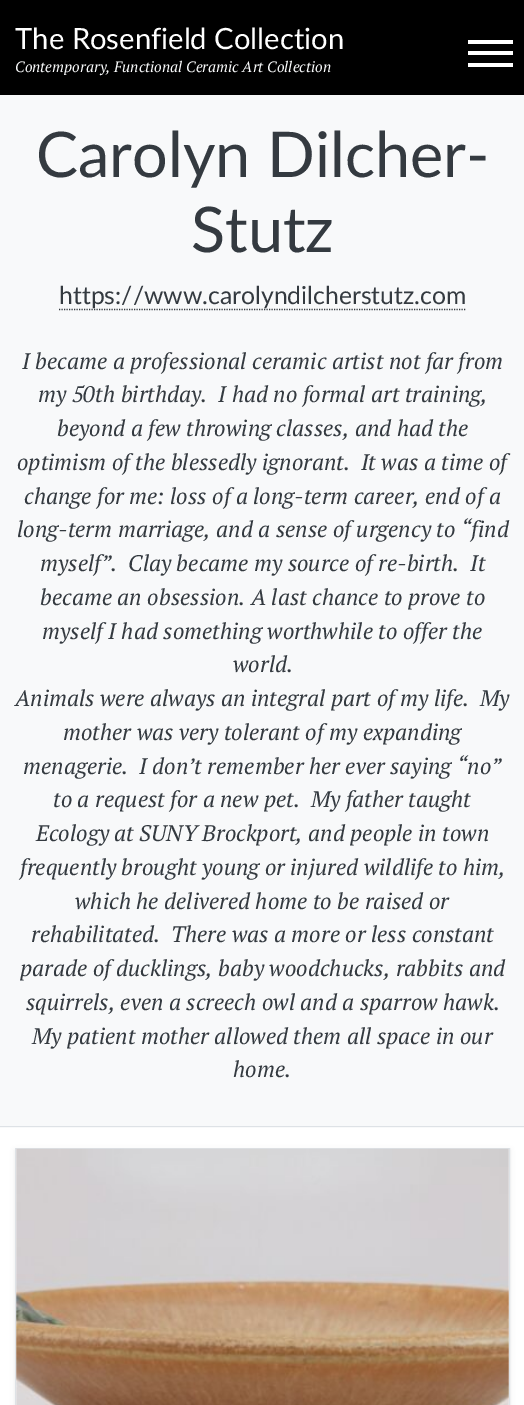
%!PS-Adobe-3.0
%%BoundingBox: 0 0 524 1405
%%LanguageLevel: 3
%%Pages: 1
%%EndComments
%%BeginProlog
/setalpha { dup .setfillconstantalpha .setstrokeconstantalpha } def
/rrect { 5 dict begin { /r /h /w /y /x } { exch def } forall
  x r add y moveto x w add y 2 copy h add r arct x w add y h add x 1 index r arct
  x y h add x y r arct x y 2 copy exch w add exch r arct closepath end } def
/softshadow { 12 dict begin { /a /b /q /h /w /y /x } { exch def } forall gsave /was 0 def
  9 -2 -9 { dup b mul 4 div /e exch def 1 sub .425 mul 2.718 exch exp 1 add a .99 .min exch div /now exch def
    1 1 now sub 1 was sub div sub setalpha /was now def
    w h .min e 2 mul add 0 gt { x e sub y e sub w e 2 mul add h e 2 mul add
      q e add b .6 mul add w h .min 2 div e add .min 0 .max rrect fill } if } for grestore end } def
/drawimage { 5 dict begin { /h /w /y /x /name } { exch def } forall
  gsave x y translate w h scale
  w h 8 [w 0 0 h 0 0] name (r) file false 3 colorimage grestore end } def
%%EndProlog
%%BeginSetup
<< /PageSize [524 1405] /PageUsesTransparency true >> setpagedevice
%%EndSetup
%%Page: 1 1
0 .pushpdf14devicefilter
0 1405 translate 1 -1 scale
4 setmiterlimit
1 setgray
0 0 524 1405 rectfill
0 setgray
0 0 524 95 rectfill
1 setgray
468 51 45 4 rectfill
468 40 45 4 rectfill
468 63 45 4 rectfill
0.973 0.976 0.98 setrgbcolor
0 95 524 1033 rectfill
0.871 0.886 0.902 setrgbcolor
0 1126 524 1 rectfill
0.204 0.227 0.251 setrgbcolor
1.2 setlinewidth
[1.25 1.25] 0 setdash
newpath 59 309.5 moveto 466 309.5 lineto stroke
0 setgray
15 1150 495 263 0 2.5 0.07 softshadow
0.871 0.886 0.902 setrgbcolor
1 setlinewidth
[] 0 setdash
15.5 1148.5 494 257 rectstroke
(images/1.raw) 16 1148 493 257 drawimage
/Lato-Regular [29.25 0 0 -29.25 0 0] selectfont
1 setgray
15 49 moveto (The Rosenfield Collection) show
/PTSerif-Italic [15 0 0 -15 0 0] selectfont
0.973 0.976 0.98 setrgbcolor
15 72 moveto (Contemporary, Functional Ceramic Art Collection) show
/Lato-Regular [63 0 0 -63 0 0] selectfont
0.204 0.227 0.251 setrgbcolor
36 177 moveto (Carolyn Dilcher-) show
191 252 moveto (Stutz) show
/Lato-Regular [24.75 0 0 -24.75 0 0] selectfont
59 304 moveto (https://www.carolyndilcherstutz.com) show
/PTSerif-Italic [22.5 0 0 -22.5 0 0] selectfont
22 369 moveto (I became a professional ceramic artist not far from) show
38 402 moveto (my 50th birthday.  I had no formal art training,) show
57 436 moveto (beyond a few throwing classes, and had the) show
17 470 moveto (optimism of the blessedly ignorant.  It was a time of) show
24 504 moveto (change for me: loss of a long-term career, end of a) show
17 537 moveto (long-term marriage, and a sense of urgency to “find) show
40 571 moveto (myself”.  Clay became my source of re-birth.  It) show
40 605 moveto (became an obsession. A last chance to prove to) show
42 639 moveto (myself I had something worthwhile to offer the) show
233 672 moveto (world.) show
15 706 moveto (Animals were always an integral part of my life.  My) show
63 740 moveto (mother was very tolerant of my expanding) show
23 774 moveto (menagerie.  I don’t remember her ever saying “no”) show
53 807 moveto (to a request for a new pet.  My father taught) show
36 841 moveto (Ecology at SUNY Brockport, and people in town) show
20 875 moveto (frequently brought young or injured wildlife to him,) show
75 909 moveto (which he delivered home to be raised or) show
31 942 moveto (rehabilitated.  There was a more or less constant) show
20 976 moveto (parade of ducklings, baby woodchucks, rabbits and) show
26 1010 moveto (squirrels, even a screech owl and a sparrow hawk.) show
32 1044 moveto (My patient mother allowed them all space in our) show
233 1077 moveto (home.) show
.poppdf14devicefilter showpage
%%EOF
